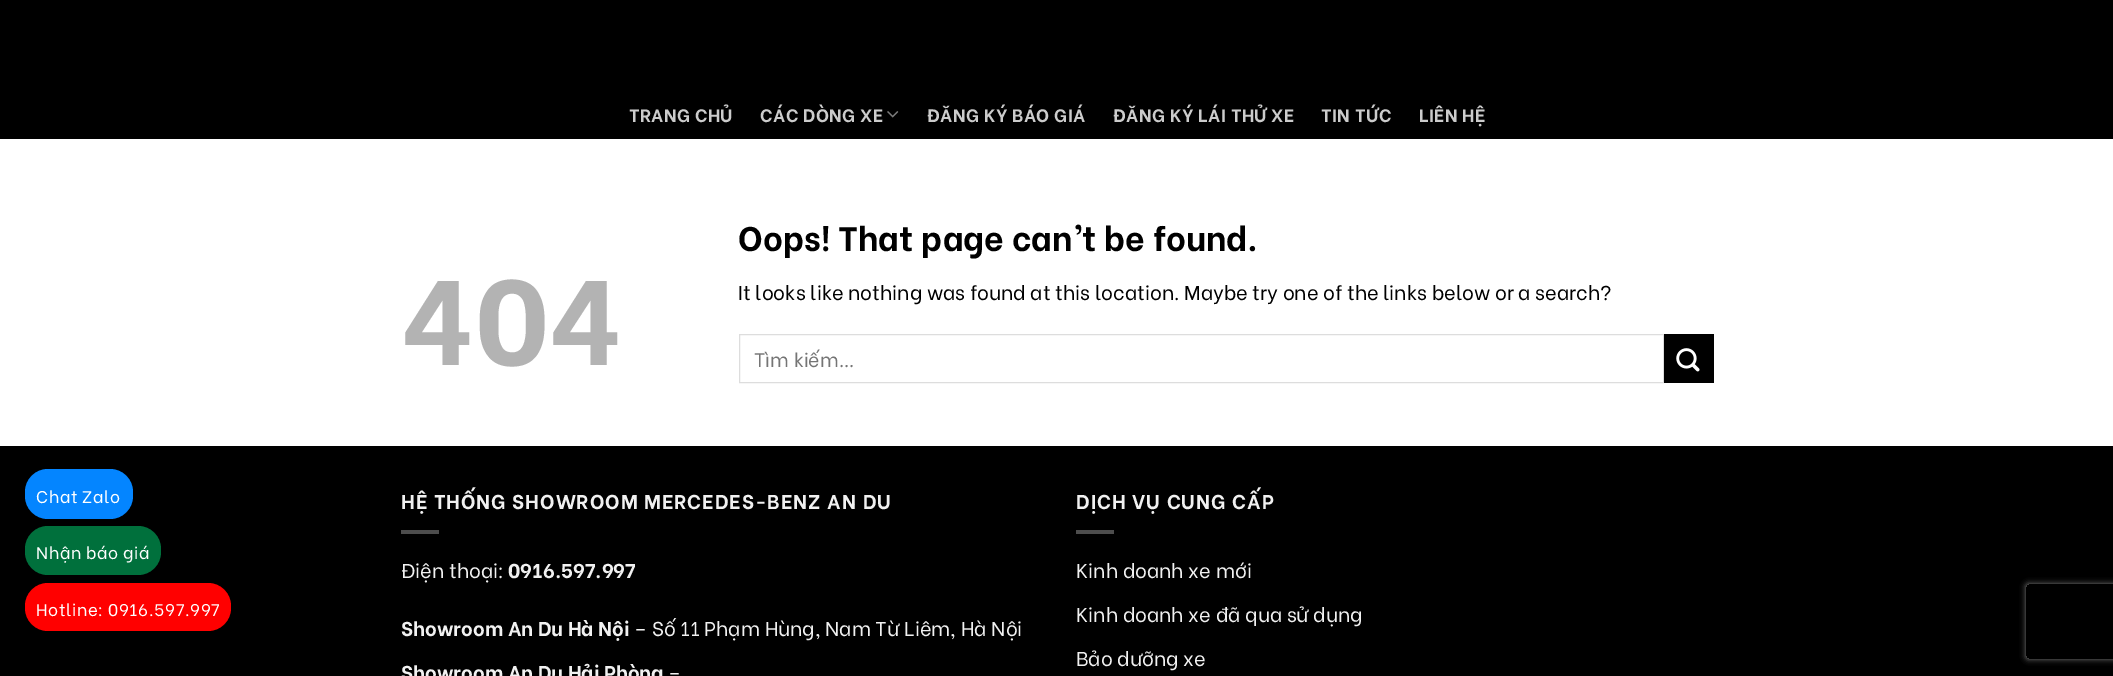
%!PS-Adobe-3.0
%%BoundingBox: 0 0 2113 676
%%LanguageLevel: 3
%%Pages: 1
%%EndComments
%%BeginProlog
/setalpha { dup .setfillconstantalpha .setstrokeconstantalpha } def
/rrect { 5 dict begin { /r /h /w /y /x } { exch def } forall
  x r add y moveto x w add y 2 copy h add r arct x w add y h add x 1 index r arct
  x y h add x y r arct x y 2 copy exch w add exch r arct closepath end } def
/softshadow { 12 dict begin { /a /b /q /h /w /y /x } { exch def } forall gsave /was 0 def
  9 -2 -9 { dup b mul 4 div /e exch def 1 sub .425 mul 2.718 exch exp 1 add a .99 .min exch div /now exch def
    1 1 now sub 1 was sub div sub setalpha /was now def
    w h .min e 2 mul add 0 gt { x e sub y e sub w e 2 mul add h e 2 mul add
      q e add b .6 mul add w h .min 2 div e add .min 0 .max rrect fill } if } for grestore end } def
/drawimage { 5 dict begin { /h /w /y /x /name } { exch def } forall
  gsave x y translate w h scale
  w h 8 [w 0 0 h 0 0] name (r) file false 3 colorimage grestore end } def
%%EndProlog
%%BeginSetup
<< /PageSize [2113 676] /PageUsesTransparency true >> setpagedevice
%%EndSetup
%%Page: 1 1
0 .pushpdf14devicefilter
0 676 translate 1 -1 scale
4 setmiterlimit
1 setgray
0 0 2113 676 rectfill
0 setgray
0 0 2113 139 rectfill
(images/1.raw) 887 111 12 7 drawimage
0.867 setgray
739.5 334.5 924 48 rectstroke
0 setgray
1664 334 50 49 rectfill
(images/2.raw) 1676 348 24 24 drawimage
0 446 2113 230 rectfill
0.016 0.522 1 setrgbcolor
25 469 108 50 23 rrect fill
0 0.439 0.235 setrgbcolor
25 526 136 49 23 rrect fill
1 0 0 setrgbcolor
25 583 206 48 23 rrect fill
0.302 setgray
401 530 38 4 rectfill
1076 530 38 4 rectfill
gsave
newpath 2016 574 moveto 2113 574 lineto 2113 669 lineto 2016 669 lineto closepath 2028.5 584 moveto 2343.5 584 lineto 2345 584 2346 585 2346 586.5 curveto 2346 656.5 lineto 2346 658 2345 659 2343.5 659 curveto 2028.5 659 lineto 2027 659 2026 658 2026 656.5 curveto 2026 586.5 lineto 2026 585 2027 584 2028.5 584 curveto closepath eoclip newpath
0.502 setgray
2026 584 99 75 2.5 3 1 softshadow
grestore
/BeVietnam-Bold [18 0 0 -18 0 0] selectfont
0.8 setgray
629 122 moveto 0.4 0 (TRANG CHỦ) ashow
760 122 moveto 0.4 0 (CÁC DÒNG XE) ashow
927 122 moveto 0.4 0 (ĐĂNG KÝ BÁO GIÁ) ashow
1113 122 moveto 0.4 0 (ĐĂNG KÝ LÁI THỬ XE) ashow
1321 122 moveto 0.4 0 (TIN TỨC) ashow
1419 122 moveto 0.4 0 (LIÊN HỆ) ashow
/BeVietnam-Bold [120 0 0 -120 0 0] selectfont
0.702 setgray
401 365 moveto (404) show
/BeVietnam-Bold [34 0 0 -34 0 0] selectfont
0 setgray
738 251 moveto (Oops! That page can’t be found.) show
/BeVietnam-Regular [20 0 0 -20 0 0] selectfont
738 300 moveto (It looks like nothing was found at this location. Maybe try one of the links below or a search?) show
/BeVietnam-Regular [19.5 0 0 -19.5 0 0] selectfont
0.459 setgray
754 367 moveto (Tìm kiếm…) show
/BeVietnam-Regular [16.9 0 0 -16.9 0 0] selectfont
1 setgray
36 503 moveto 0.6 0 (Chat Zalo) ashow
36 559 moveto 0.6 0 (Nhận báo giá) ashow
36 616 moveto 0.6 0 (Hotline: 0916.597.997) ashow
/BeVietnam-Bold [20 0 0 -20 0 0] selectfont
0.945 setgray
401 509 moveto 1 0 (HỆ THỐNG SHOWROOM MERCEDES-BENZ AN DU) ashow
/BeVietnam-Regular [20 0 0 -20 0 0] selectfont
401 578 moveto (Điện thoại:) show
/BeVietnam-Bold [20 0 0 -20 0 0] selectfont
508 578 moveto (0916.597.997) show
401 636 moveto (Showroom An Du Hà Nội) show
/BeVietnam-Regular [20 0 0 -20 0 0] selectfont
634 636 moveto (– Số 11 Phạm Hùng, Nam Từ Liêm, Hà Nội) show
/BeVietnam-Bold [20 0 0 -20 0 0] selectfont
401 680 moveto (Showroom An Du Hải Phòng) show
/BeVietnam-Regular [20 0 0 -20 0 0] selectfont
668 680 moveto (–) show
/BeVietnam-Bold [20 0 0 -20 0 0] selectfont
1076 509 moveto 1 0 (DỊCH VỤ CUNG CẤP) ashow
/BeVietnam-Regular [20 0 0 -20 0 0] selectfont
1076 578 moveto (Kinh doanh xe mới) show
1076 622 moveto (Kinh doanh xe đã qua sử dụng) show
1076 666 moveto (Bảo dưỡng xe) show
.poppdf14devicefilter showpage
%%EOF
